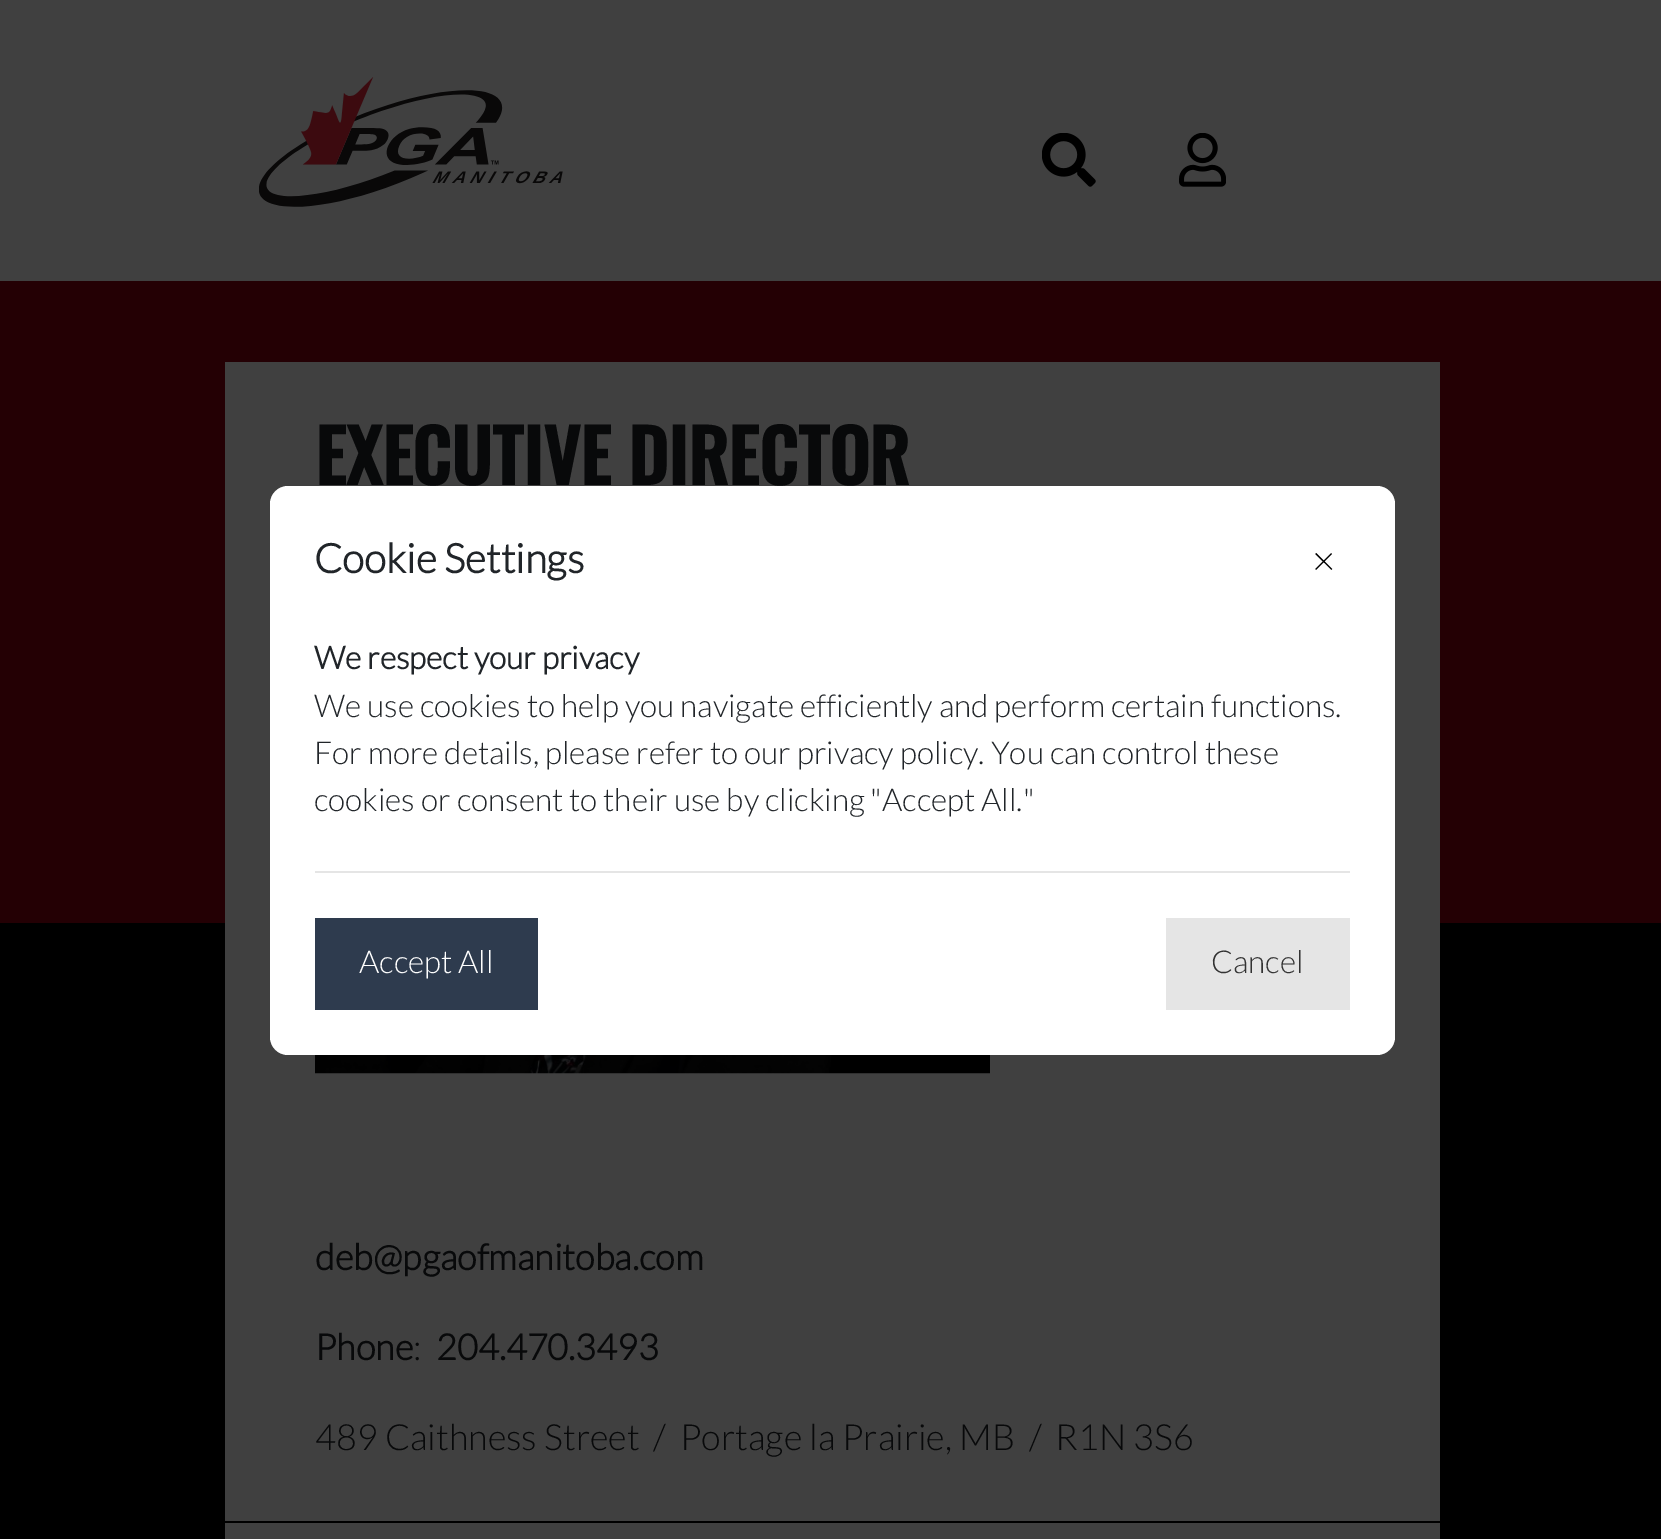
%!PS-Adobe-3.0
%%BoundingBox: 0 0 1661 1539
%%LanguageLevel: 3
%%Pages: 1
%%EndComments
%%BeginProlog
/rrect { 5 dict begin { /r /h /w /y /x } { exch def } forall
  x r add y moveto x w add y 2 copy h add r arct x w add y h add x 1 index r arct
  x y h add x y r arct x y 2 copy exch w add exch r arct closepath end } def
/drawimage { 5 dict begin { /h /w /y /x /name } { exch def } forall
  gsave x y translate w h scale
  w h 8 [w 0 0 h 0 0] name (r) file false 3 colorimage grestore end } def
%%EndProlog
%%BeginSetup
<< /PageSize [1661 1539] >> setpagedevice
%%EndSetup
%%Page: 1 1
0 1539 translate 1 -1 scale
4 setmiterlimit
0 setgray
0 0 1661 1539 rectfill
0.251 setgray
0 0 1661 281 rectfill
(images/1.raw) 259 77 304 130 drawimage
(images/2.raw) 1042 133 54 54 drawimage
(images/3.raw) 1179 133 47 54 drawimage
0.141 0 0.016 setrgbcolor
0 281 1661 642 rectfill
0.251 setgray
225 362 1215 1159 rectfill
(images/4.raw) 315 1055 675 19 drawimage
1 setgray
270 486 1125 569 18 rrect fill
0.898 setgray
315 871 1035 2 rectfill
0.18 0.231 0.306 setrgbcolor
315 918 223 92 rectfill
0.898 setgray
1166 918 184 92 rectfill
0.251 setgray
225 1523 1215 16 rectfill
/Oswald-Bold [72 0 0 -72 0 0] selectfont
0.031 0.035 0.039 setrgbcolor
315 485 moveto (EXECUTIVE DIRECTOR) show
/Lato-Bold [36 0 0 -36 0 0] selectfont
315 1270 moveto (deb@pgaofmanitoba.com) show
315 1360 moveto (Phone) show
/Lato-Light [36 0 0 -36 0 0] selectfont
413 1360 moveto (:) show
/Lato-Bold [36 0 0 -36 0 0] selectfont
436 1360 moveto (204.470.3493) show
/Lato-Light [36 0 0 -36 0 0] selectfont
315 1450 moveto (489 Caithness Street  /  Portage la Prairie, MB  /  R1N 3S6) show
/Lato-Bold [40.5 0 0 -40.5 0 0] selectfont
0.129 0.145 0.161 setrgbcolor
314 573 moveto (Cookie Settings) show
/Lato-Light [40.5 0 0 -40.5 0 0] selectfont
0 setgray
1312 575 moveto (×) show
/Lato-Bold [31.5 0 0 -31.5 0 0] selectfont
0.129 0.145 0.161 setrgbcolor
314 669 moveto (We respect your privacy) show
/Lato-Light [31.5 0 0 -31.5 0 0] selectfont
314 717 moveto (We use cookies to help you navigate efficiently and perform certain functions.) show
314 764 moveto (For more details, please refer to our privacy policy. You can control these) show
314 811 moveto (cookies or consent to their use by clicking "Accept All.") show
1 setgray
359 973 moveto (Accept All) show
0.2 setgray
1211 973 moveto (Cancel) show
showpage
%%EOF
